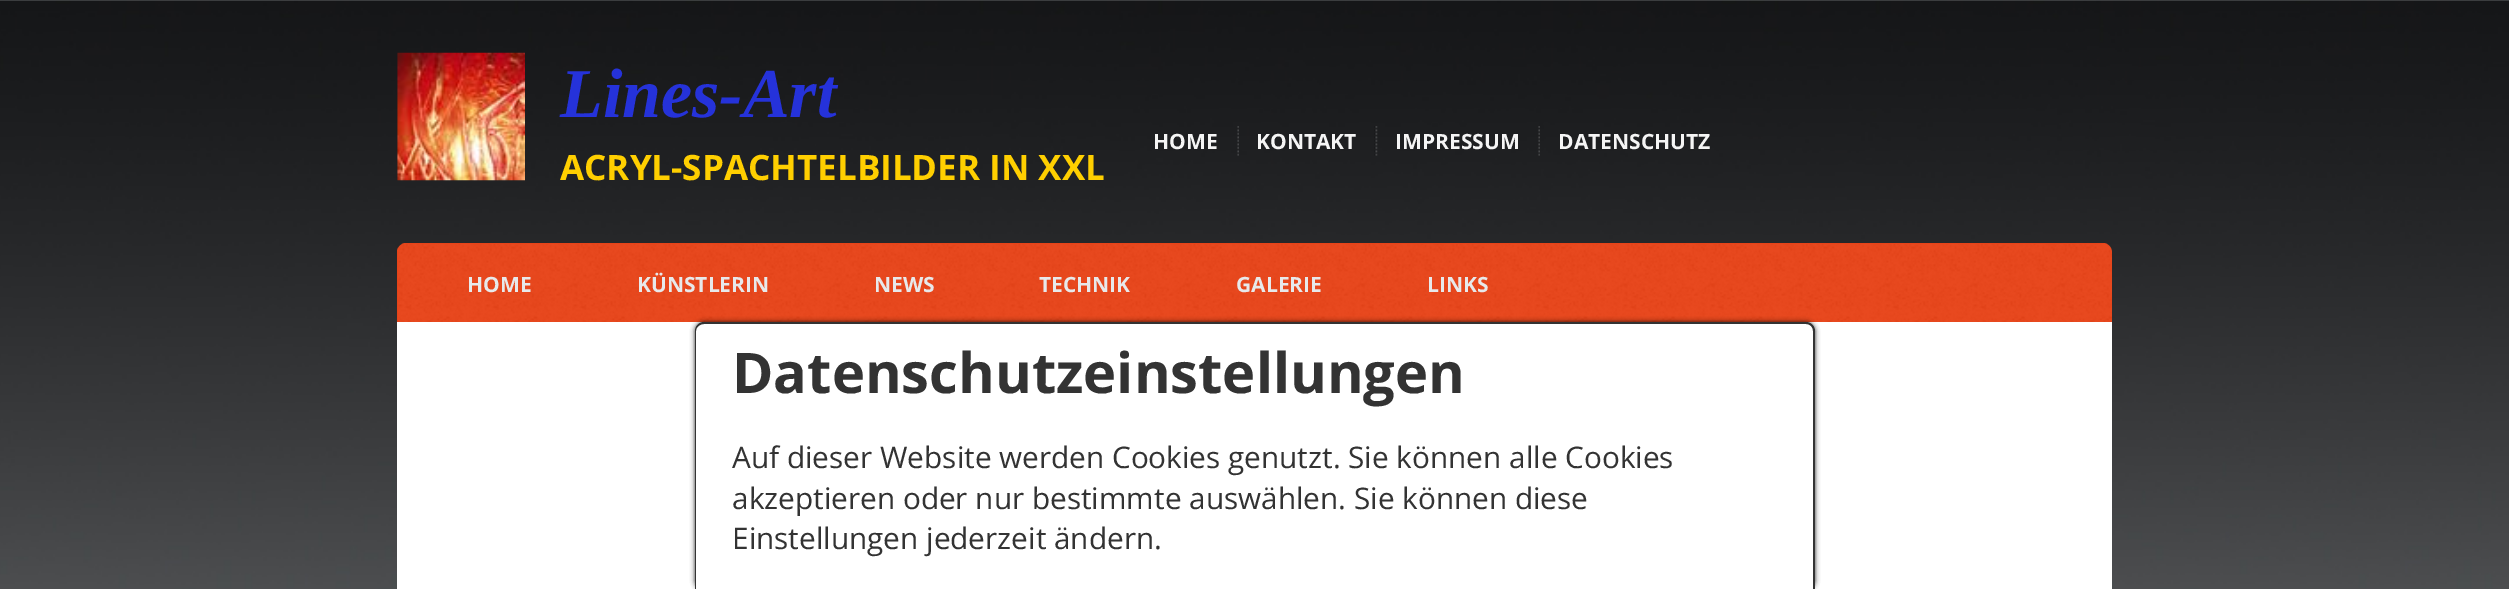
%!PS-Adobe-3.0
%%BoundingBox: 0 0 2509 589
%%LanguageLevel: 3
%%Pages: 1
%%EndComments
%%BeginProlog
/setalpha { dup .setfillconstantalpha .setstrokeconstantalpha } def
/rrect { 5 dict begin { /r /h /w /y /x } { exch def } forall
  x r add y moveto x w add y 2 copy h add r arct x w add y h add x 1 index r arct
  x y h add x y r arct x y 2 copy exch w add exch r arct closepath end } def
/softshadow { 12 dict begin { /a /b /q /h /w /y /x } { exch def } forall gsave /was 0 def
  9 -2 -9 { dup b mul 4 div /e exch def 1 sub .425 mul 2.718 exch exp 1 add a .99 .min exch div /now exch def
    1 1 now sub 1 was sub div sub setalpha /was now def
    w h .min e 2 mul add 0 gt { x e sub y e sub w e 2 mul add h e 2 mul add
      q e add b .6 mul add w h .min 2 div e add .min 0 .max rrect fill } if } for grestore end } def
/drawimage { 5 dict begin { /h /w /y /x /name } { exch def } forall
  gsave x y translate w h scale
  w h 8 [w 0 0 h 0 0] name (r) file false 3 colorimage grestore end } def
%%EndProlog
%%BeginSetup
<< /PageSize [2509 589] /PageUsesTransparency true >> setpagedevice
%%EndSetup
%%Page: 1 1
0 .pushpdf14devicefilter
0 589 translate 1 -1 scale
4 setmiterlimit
1 setgray
0 0 2509 589 rectfill
(images/1.raw) 0 0 2509 589 drawimage
(images/2.raw) 397 52 128 129 drawimage
(images/3.raw) 1237 126 2 30 drawimage
(images/4.raw) 1374 126 4 30 drawimage
(images/5.raw) 1538 126 2 30 drawimage
0.906 0.263 0.094 setrgbcolor
newpath 406 243 moveto 2103 243 lineto 2108 243 2112 247 2112 252 curveto 2112 322 lineto 397 322 lineto 397 252 lineto 397 247 401 243 406 243 curveto closepath fill
(images/6.raw) 398 244 1714 78 drawimage
1 setgray
397 322 1715 267 rectfill
gsave
newpath 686 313 moveto 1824 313 lineto 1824 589 lineto 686 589 lineto closepath 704 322 moveto 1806 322 lineto 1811 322 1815 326 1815 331 curveto 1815 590 lineto 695 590 lineto 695 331 lineto 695 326 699 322 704 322 curveto closepath eoclip newpath
0 setgray
695 322 1120 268 9 2.5 0.8 softshadow
grestore
0.9 setalpha
newpath 704 322 moveto 1806 322 lineto 1811 322 1815 326 1815 331 curveto 1815 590 lineto 695 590 lineto 695 331 lineto 695 326 699 322 704 322 curveto closepath fill
1 setalpha
0.2 setgray
newpath 704 322 moveto 1806 322 lineto 1811 322 1815 326 1815 331 curveto 1815 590 lineto 695 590 lineto 695 331 lineto 695 326 699 322 704 322 curveto closepath 704 324 moveto 1806 324 lineto 1810 324 1813 327 1813 331 curveto 1813 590 lineto 696 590 lineto 696 331 lineto 696 327 700 324 704 324 curveto closepath eofill
/LiberationSerif-BoldItalic [70 0 0 -70 0 0] selectfont
0.145 0.196 0.855 setrgbcolor
560 117 moveto (Lines-Art) show
/OpenSans-Bold [35 0 0 -35 0 0] selectfont
1 0.812 0 setrgbcolor
560 180 moveto (ACRYL-SPACHTELBILDER IN XXL) show
/OpenSans-Bold [21 0 0 -21 0 0] selectfont
0.961 setgray
1153 149 moveto (HOME) show
1256 149 moveto (KONTAKT) show
1395 149 moveto (IMPRESSUM) show
1558 149 moveto (DATENSCHUTZ) show
0.906 0.914 0.922 setrgbcolor
467 292 moveto (HOME) show
637 292 moveto (KÜNSTLERIN) show
874 292 moveto (NEWS) show
1039 292 moveto (TECHNIK) show
1236 292 moveto (GALERIE) show
1427 292 moveto (LINKS) show
/OpenSans-Bold [56 0 0 -56 0 0] selectfont
0.2 setgray
732 393 moveto (Datenschutzeinstellungen) show
/OpenSans-Regular [29.75 0 0 -29.75 0 0] selectfont
732 468 moveto (Auf dieser Website werden Cookies genutzt. Sie können alle Cookies) show
732 509 moveto (akzeptieren oder nur bestimmte auswählen. Sie können diese) show
732 549 moveto (Einstellungen jederzeit ändern.) show
.poppdf14devicefilter showpage
%%EOF
